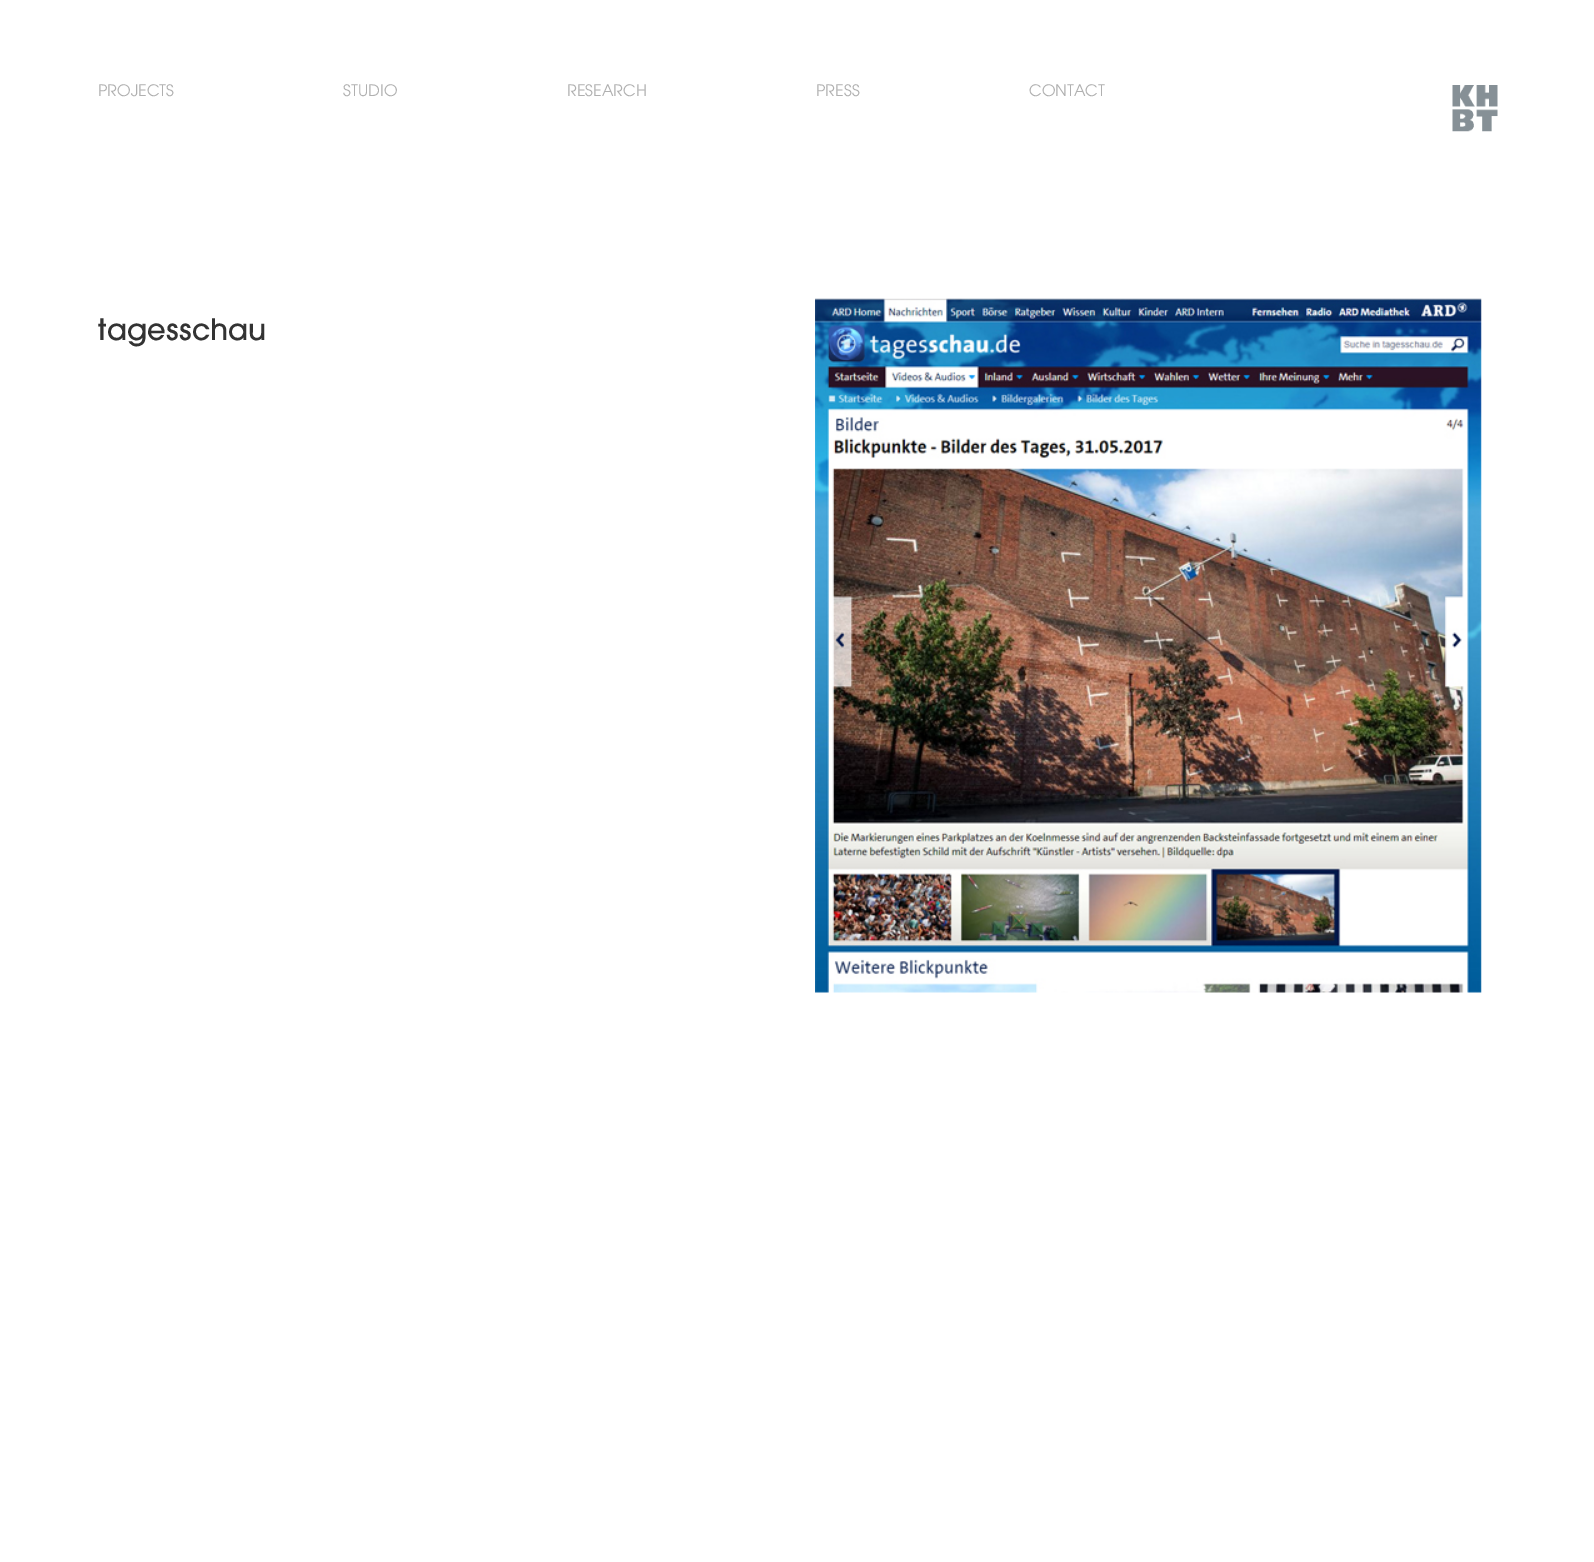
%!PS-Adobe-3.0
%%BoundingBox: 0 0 1594 1562
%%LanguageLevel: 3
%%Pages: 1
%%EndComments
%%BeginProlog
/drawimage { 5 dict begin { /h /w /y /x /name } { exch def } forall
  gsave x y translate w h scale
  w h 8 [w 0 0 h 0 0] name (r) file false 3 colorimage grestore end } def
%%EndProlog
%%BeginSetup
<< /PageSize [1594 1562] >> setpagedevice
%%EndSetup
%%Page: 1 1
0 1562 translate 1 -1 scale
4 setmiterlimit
1 setgray
0 0 1594 1562 rectfill
(images/1.raw) 1452 85 46 47 drawimage
(images/2.raw) 815 298 667 695 drawimage
/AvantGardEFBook-Regular [17.5 0 0 -17.5 0 0] selectfont
0.69 setgray
98 96 moveto (PROJECTS) show
343 96 moveto (STUDIO) show
567 96 moveto (RESEARCH) show
816 96 moveto (PRESS) show
1029 96 moveto (CONTACT) show
/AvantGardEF-Medium [32.5 0 0 -32.5 0 0] selectfont
0.2 setgray
98 340 moveto (tagesschau) show
showpage
%%EOF
